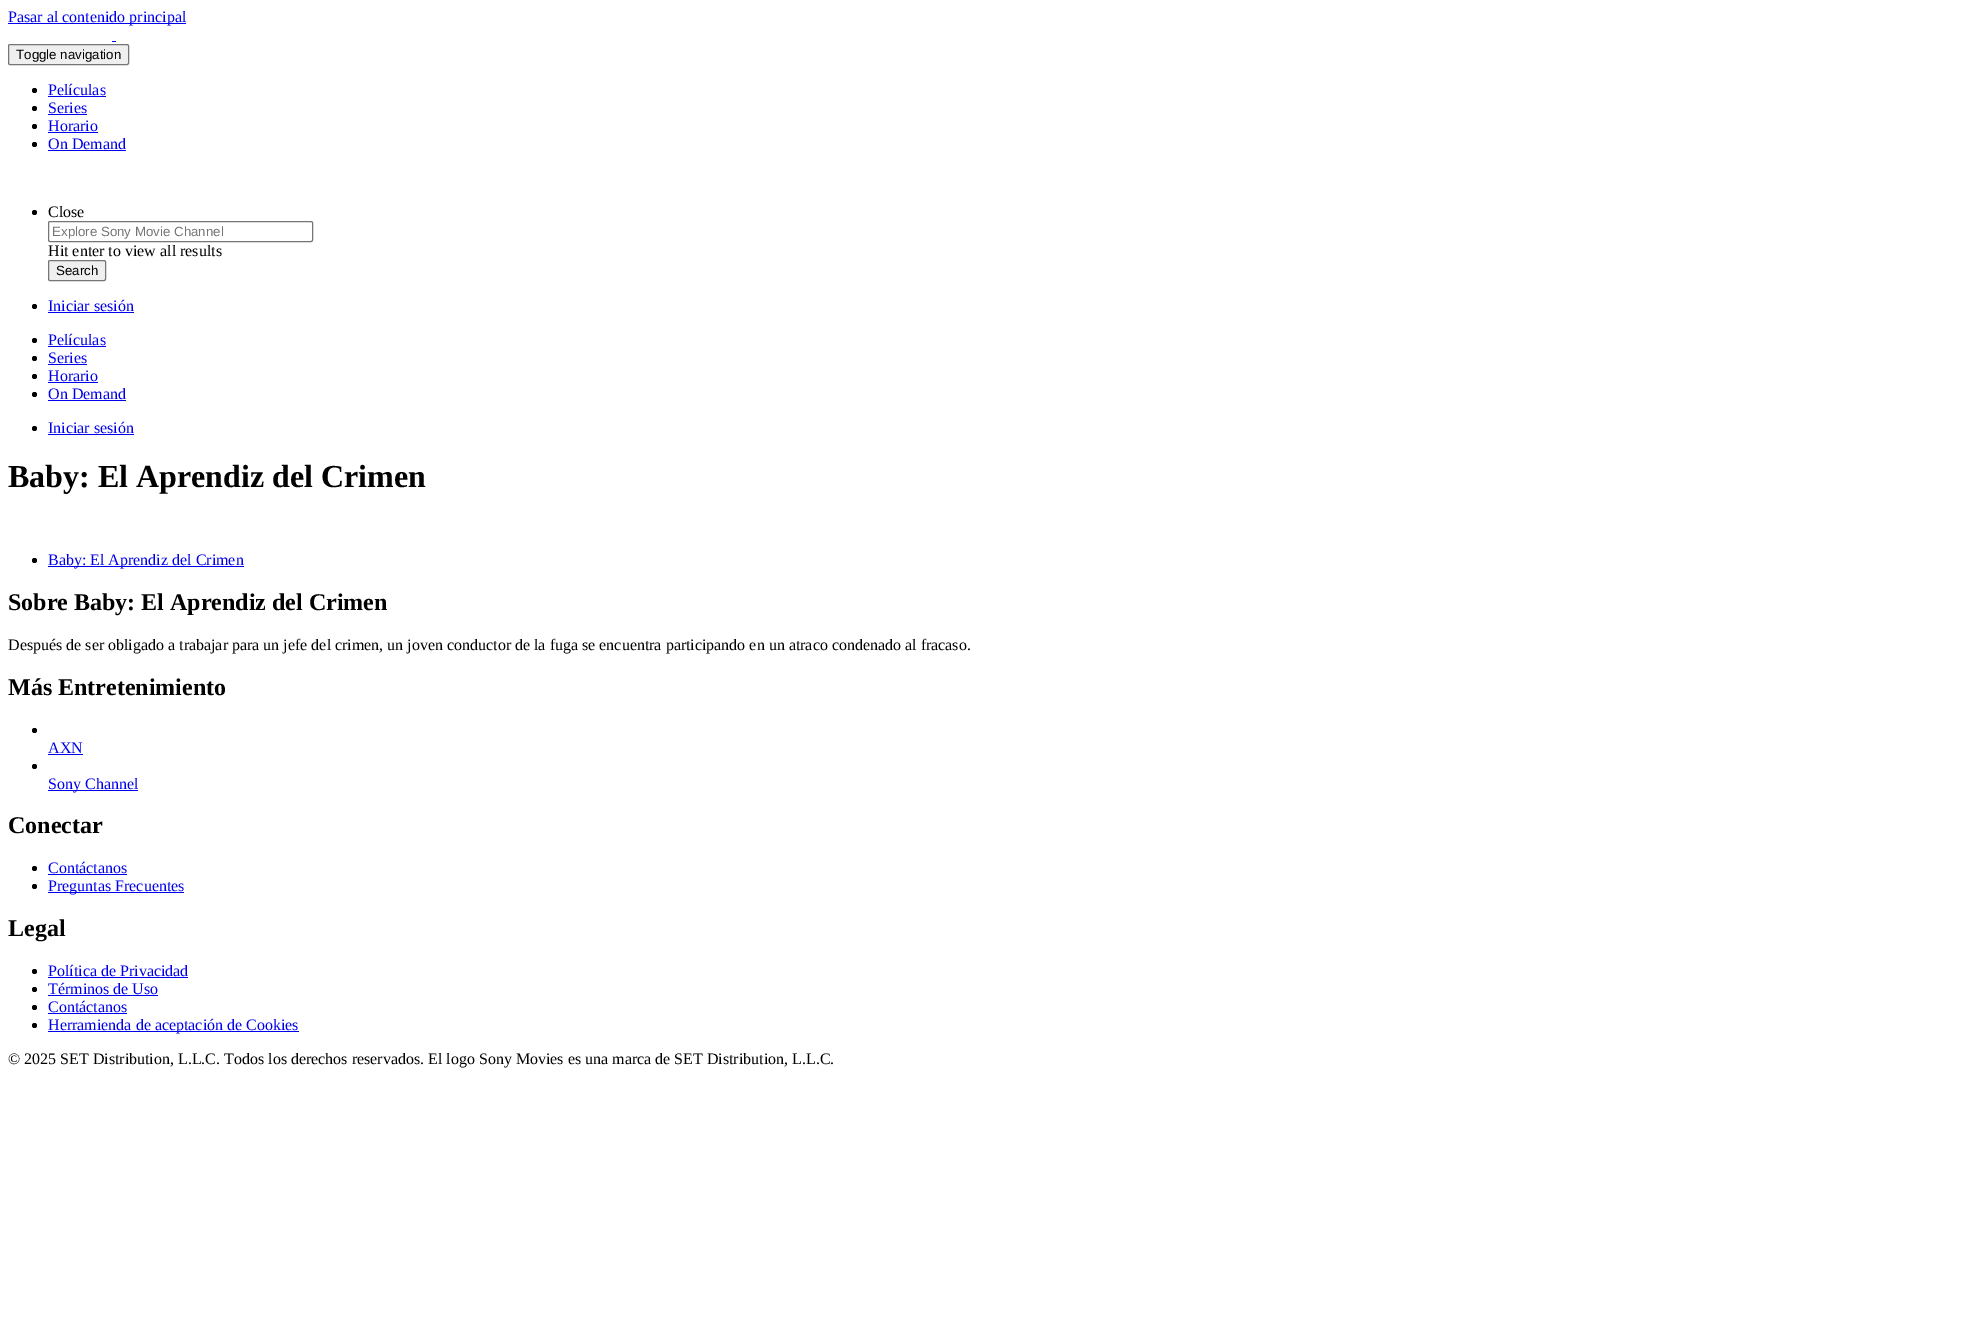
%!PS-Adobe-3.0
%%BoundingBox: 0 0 1980 1322
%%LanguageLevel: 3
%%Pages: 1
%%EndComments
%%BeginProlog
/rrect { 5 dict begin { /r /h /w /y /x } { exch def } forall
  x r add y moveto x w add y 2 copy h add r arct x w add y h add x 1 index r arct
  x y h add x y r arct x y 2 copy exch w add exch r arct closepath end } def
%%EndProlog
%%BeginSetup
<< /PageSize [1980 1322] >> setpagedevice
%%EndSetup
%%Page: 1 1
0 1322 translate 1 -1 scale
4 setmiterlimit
1 setgray
0 0 1980 1322 rectfill
0 0 0.933 setrgbcolor
8 23 178 1 rectfill
112 41 4 1 rectfill
0.937 setgray
8.5 44.5 120 20 1.5 rrect gsave fill grestore
0.463 setgray
stroke
0 setgray
newpath 34.5 90.5 2.5 0 360 arc closepath fill
0 0 0.933 setrgbcolor
48 96 58 1 rectfill
0 setgray
newpath 34.5 108.5 2.5 0 360 arc closepath fill
0 0 0.933 setrgbcolor
48 114 39 1 rectfill
0 setgray
newpath 34.5 126.5 2.5 0 360 arc closepath fill
0 0 0.933 setrgbcolor
48 132 50 1 rectfill
0 setgray
newpath 34.5 144.5 2.5 0 360 arc closepath fill
0 0 0.933 setrgbcolor
48 150 78 1 rectfill
0 setgray
newpath 34.5 212.5 2.5 0 360 arc closepath fill
0.463 setgray
48.5 221.5 264 20 1.5 rrect stroke
0.937 setgray
48.5 260.5 57 20 1.5 rrect gsave fill grestore
0.463 setgray
stroke
0 setgray
newpath 34.5 306.5 2.5 0 360 arc closepath fill
0 0 0.933 setrgbcolor
48 312 86 1 rectfill
0 setgray
newpath 34.5 340.5 2.5 0 360 arc closepath fill
0 0 0.933 setrgbcolor
48 346 58 1 rectfill
0 setgray
newpath 34.5 358.5 2.5 0 360 arc closepath fill
0 0 0.933 setrgbcolor
48 364 39 1 rectfill
0 setgray
newpath 34.5 376.5 2.5 0 360 arc closepath fill
0 0 0.933 setrgbcolor
48 382 50 1 rectfill
0 setgray
newpath 34.5 394.5 2.5 0 360 arc closepath fill
0 0 0.933 setrgbcolor
48 400 78 1 rectfill
0 setgray
newpath 34.5 428.5 2.5 0 360 arc closepath fill
0 0 0.933 setrgbcolor
48 434 86 1 rectfill
0 setgray
newpath 34.5 560.5 2.5 0 360 arc closepath fill
0 0 0.933 setrgbcolor
48 566 196 1 rectfill
0 setgray
newpath 34.5 730.5 2.5 0 360 arc closepath fill
0 0 0.933 setrgbcolor
48 754 35 1 rectfill
0 setgray
newpath 34.5 766.5 2.5 0 360 arc closepath fill
0 0 0.933 setrgbcolor
48 790 90 1 rectfill
0 setgray
newpath 34.5 868.5 2.5 0 360 arc closepath fill
0 0 0.933 setrgbcolor
48 874 79 1 rectfill
0 setgray
newpath 34.5 886.5 2.5 0 360 arc closepath fill
0 0 0.933 setrgbcolor
48 892 136 1 rectfill
0 setgray
newpath 34.5 971.5 2.5 0 360 arc closepath fill
0 0 0.933 setrgbcolor
48 977 140 1 rectfill
0 setgray
newpath 34.5 989.5 2.5 0 360 arc closepath fill
0 0 0.933 setrgbcolor
48 995 110 1 rectfill
0 setgray
newpath 34.5 1007.5 2.5 0 360 arc closepath fill
0 0 0.933 setrgbcolor
48 1013 79 1 rectfill
0 setgray
newpath 34.5 1025.5 2.5 0 360 arc closepath fill
0 0 0.933 setrgbcolor
48 1031 251 1 rectfill
/LiberationSerif-Regular [16 0 0 -16 0 0] selectfont
8 22 moveto (Pasar al contenido principal) show
/LiberationSans-Regular [13.3 0 0 -13.3 0 0] selectfont
0 setgray
16 59 moveto (Toggle navigation) show
/LiberationSerif-Regular [16 0 0 -16 0 0] selectfont
0 0 0.933 setrgbcolor
48 95 moveto (Películas) show
48 113 moveto (Series) show
48 131 moveto (Horario) show
48 149 moveto (On Demand) show
0 setgray
48 217 moveto (Close) show
/LiberationSans-Regular [13.3 0 0 -13.3 0 0] selectfont
0.459 setgray
52 236 moveto (Explore Sony Movie Channel) show
/LiberationSerif-Regular [16 0 0 -16 0 0] selectfont
0 setgray
48 256 moveto (Hit enter to view all results) show
/LiberationSans-Regular [13.3 0 0 -13.3 0 0] selectfont
56 275 moveto (Search) show
/LiberationSerif-Regular [16 0 0 -16 0 0] selectfont
0 0 0.933 setrgbcolor
48 311 moveto (Iniciar sesión) show
48 345 moveto (Películas) show
48 363 moveto (Series) show
48 381 moveto (Horario) show
48 399 moveto (On Demand) show
48 433 moveto (Iniciar sesión) show
/LiberationSerif-Bold [32 0 0 -32 0 0] selectfont
0 setgray
8 487 moveto (Baby: El Aprendiz del Crimen) show
/LiberationSerif-Regular [16 0 0 -16 0 0] selectfont
0 0 0.933 setrgbcolor
48 565 moveto (Baby: El Aprendiz del Crimen) show
/LiberationSerif-Bold [24 0 0 -24 0 0] selectfont
0 setgray
8 610 moveto (Sobre Baby: El Aprendiz del Crimen) show
/LiberationSerif-Regular [16 0 0 -16 0 0] selectfont
8 650 moveto (Después de ser obligado a trabajar para un jefe del crimen, un joven conductor de la fuga se encuentra participando en un atraco condenado al fracaso.) show
/LiberationSerif-Bold [24 0 0 -24 0 0] selectfont
8 695 moveto (Más Entretenimiento) show
/LiberationSerif-Regular [16 0 0 -16 0 0] selectfont
0 0 0.933 setrgbcolor
48 753 moveto (AXN) show
48 789 moveto (Sony Channel) show
/LiberationSerif-Bold [24 0 0 -24 0 0] selectfont
0 setgray
8 833 moveto (Conectar) show
/LiberationSerif-Regular [16 0 0 -16 0 0] selectfont
0 0 0.933 setrgbcolor
48 873 moveto (Contáctanos) show
48 891 moveto (Preguntas Frecuentes) show
/LiberationSerif-Bold [24 0 0 -24 0 0] selectfont
0 setgray
8 936 moveto (Legal) show
/LiberationSerif-Regular [16 0 0 -16 0 0] selectfont
0 0 0.933 setrgbcolor
48 976 moveto (Política de Privacidad) show
48 994 moveto (Términos de Uso) show
48 1012 moveto (Contáctanos) show
48 1030 moveto (Herramienda de aceptación de Cookies) show
0 setgray
8 1064 moveto (© 2025 SET Distribution, L.L.C. Todos los derechos reservados. El logo Sony Movies es una marca de SET Distribution, L.L.C.) show
showpage
%%EOF
